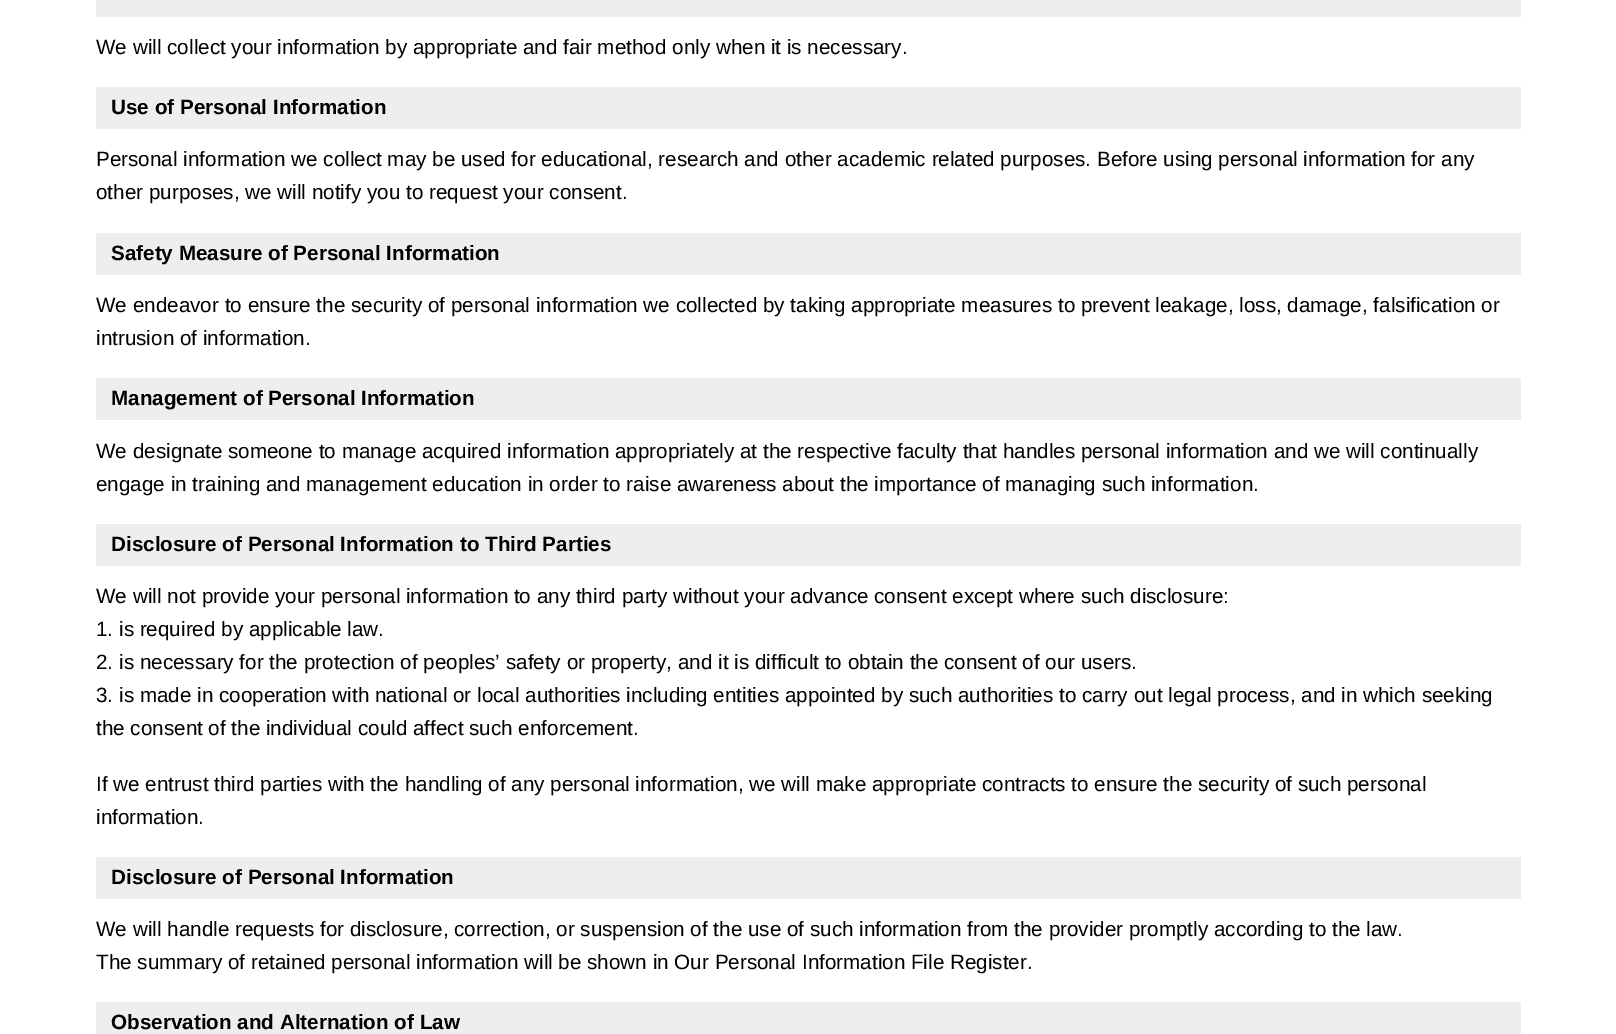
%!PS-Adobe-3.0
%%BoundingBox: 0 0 1616 1034
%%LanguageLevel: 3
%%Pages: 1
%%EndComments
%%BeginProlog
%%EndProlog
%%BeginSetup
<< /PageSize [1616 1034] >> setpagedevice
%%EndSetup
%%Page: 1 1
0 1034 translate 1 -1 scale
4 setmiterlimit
1 setgray
0 0 1616 1034 rectfill
0.933 setgray
96 0 1425 17 rectfill
96 87 1425 42 rectfill
96 233 1425 42 rectfill
96 378 1425 42 rectfill
96 524 1425 42 rectfill
96 857 1425 42 rectfill
96 1002 1425 32 rectfill
/LiberationSans-Regular [20.65 0 0 -20.65 0 0] selectfont
0 setgray
96 54 moveto (We will collect your information by appropriate and fair method only when it is necessary.) show
/LiberationSans-Bold [20.65 0 0 -20.65 0 0] selectfont
111 114 moveto (Use of Personal Information) show
/LiberationSans-Regular [20.65 0 0 -20.65 0 0] selectfont
96 166 moveto (Personal information we collect may be used for educational, research and other academic related purposes. Before using personal information for any) show
96 199 moveto (other purposes, we will notify you to request your consent.) show
/LiberationSans-Bold [20.65 0 0 -20.65 0 0] selectfont
111 260 moveto (Safety Measure of Personal Information) show
/LiberationSans-Regular [20.65 0 0 -20.65 0 0] selectfont
96 312 moveto (We endeavor to ensure the security of personal information we collected by taking appropriate measures to prevent leakage, loss, damage, falsification or) show
96 345 moveto (intrusion of information.) show
/LiberationSans-Bold [20.65 0 0 -20.65 0 0] selectfont
111 405 moveto (Management of Personal Information) show
/LiberationSans-Regular [20.65 0 0 -20.65 0 0] selectfont
96 458 moveto (We designate someone to manage acquired information appropriately at the respective faculty that handles personal information and we will continually) show
96 491 moveto (engage in training and management education in order to raise awareness about the importance of managing such information.) show
/LiberationSans-Bold [20.65 0 0 -20.65 0 0] selectfont
111 551 moveto (Disclosure of Personal Information to Third Parties) show
/LiberationSans-Regular [20.65 0 0 -20.65 0 0] selectfont
96 603 moveto (We will not provide your personal information to any third party without your advance consent except where such disclosure:) show
96 636 moveto (1. is required by applicable law.) show
96 669 moveto (2. is necessary for the protection of peoples’ safety or property, and it is difficult to obtain the consent of our users.) show
96 702 moveto (3. is made in cooperation with national or local authorities including entities appointed by such authorities to carry out legal process, and in which seeking) show
96 735 moveto (the consent of the individual could affect such enforcement.) show
96 791 moveto (If we entrust third parties with the handling of any personal information, we will make appropriate contracts to ensure the security of such personal) show
96 824 moveto (information.) show
/LiberationSans-Bold [20.65 0 0 -20.65 0 0] selectfont
111 884 moveto (Disclosure of Personal Information) show
/LiberationSans-Regular [20.65 0 0 -20.65 0 0] selectfont
96 936 moveto (We will handle requests for disclosure, correction, or suspension of the use of such information from the provider promptly according to the law.) show
96 969 moveto (The summary of retained personal information will be shown in Our Personal Information File Register.) show
/LiberationSans-Bold [20.65 0 0 -20.65 0 0] selectfont
111 1029 moveto (Observation and Alternation of Law) show
showpage
%%EOF
